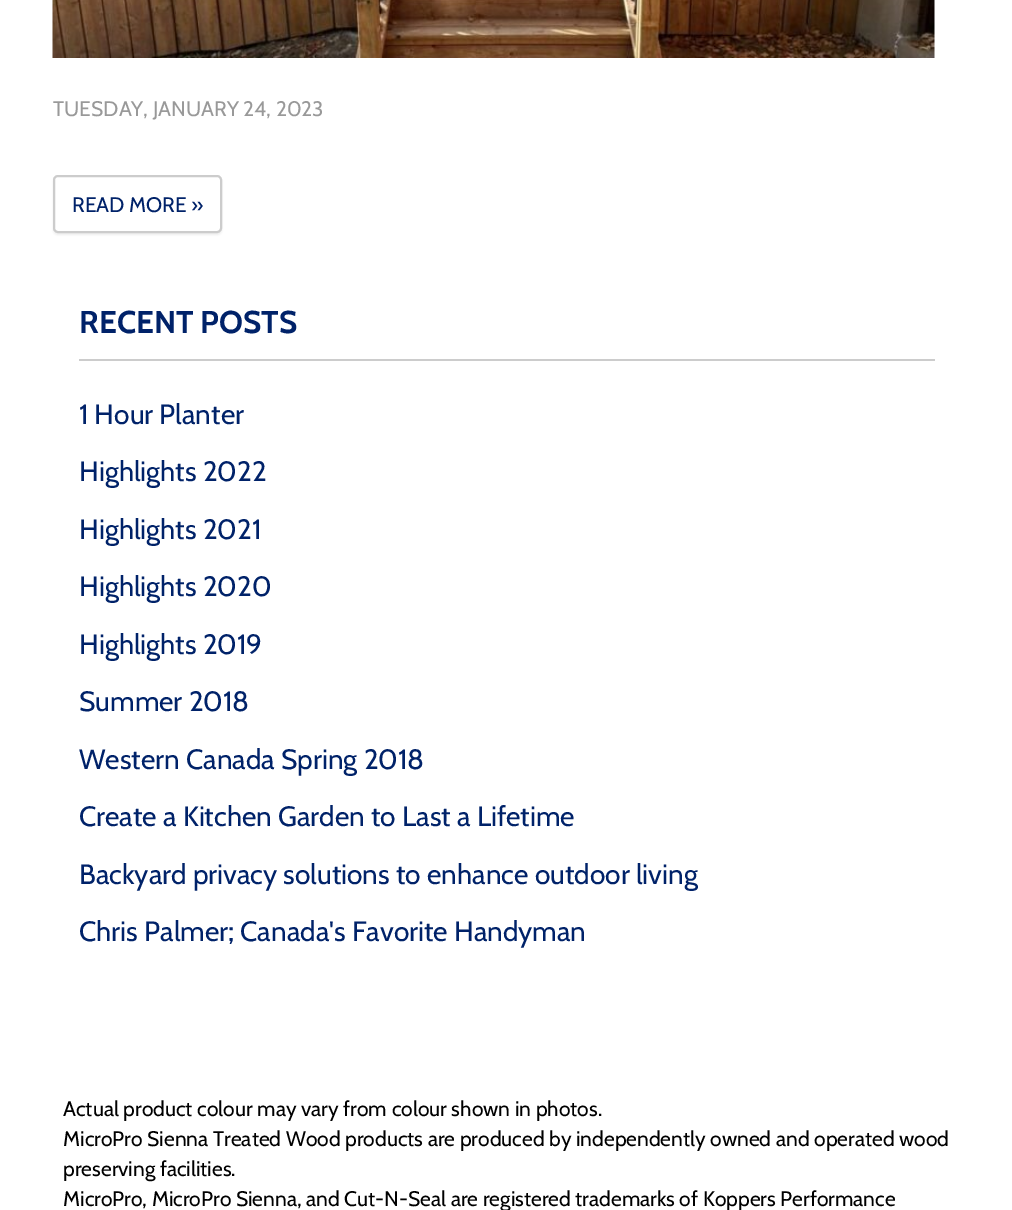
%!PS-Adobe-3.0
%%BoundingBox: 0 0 1012 1210
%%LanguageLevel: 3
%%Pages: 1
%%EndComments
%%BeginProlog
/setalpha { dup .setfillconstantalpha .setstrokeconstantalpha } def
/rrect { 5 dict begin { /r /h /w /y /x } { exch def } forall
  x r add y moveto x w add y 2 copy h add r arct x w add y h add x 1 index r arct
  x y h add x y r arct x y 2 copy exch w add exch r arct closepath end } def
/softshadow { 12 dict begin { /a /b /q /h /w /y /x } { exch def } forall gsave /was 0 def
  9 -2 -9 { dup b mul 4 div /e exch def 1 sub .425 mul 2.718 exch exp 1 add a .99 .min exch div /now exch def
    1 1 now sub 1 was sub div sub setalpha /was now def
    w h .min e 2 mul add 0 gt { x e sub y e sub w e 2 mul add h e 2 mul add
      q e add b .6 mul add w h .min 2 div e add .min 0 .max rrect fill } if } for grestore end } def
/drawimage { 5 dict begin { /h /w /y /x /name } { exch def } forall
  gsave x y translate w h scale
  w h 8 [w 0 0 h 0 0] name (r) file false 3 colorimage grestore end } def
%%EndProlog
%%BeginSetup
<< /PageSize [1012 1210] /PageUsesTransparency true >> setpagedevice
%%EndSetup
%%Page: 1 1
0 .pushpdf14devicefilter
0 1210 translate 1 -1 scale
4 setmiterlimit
1 setgray
0 0 1012 1210 rectfill
(images/1.raw) 52 0 883 58 drawimage
gsave
newpath 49 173 moveto 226 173 lineto 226 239 lineto 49 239 lineto closepath 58 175 moveto 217 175 lineto 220 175 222 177 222 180 curveto 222 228 lineto 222 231 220 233 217 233 curveto 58 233 lineto 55 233 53 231 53 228 curveto 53 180 lineto 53 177 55 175 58 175 curveto closepath eoclip newpath
0.933 setgray
53 177 169 58 5 1 1 softshadow
grestore
0.8 setgray
2 setlinewidth
54 176 167 56 4 rrect stroke
79 359 856 2 rectfill
/Cabin-Regular [21 0 0 -21 0 0] selectfont
0.6 setgray
53 116 moveto (TUESDAY, JANUARY 24, 2023) show
0 0.133 0.412 setrgbcolor
72 212 moveto (READ MORE ») show
/Cabin-Bold [31.5 0 0 -31.5 0 0] selectfont
79 333 moveto (RECENT POSTS) show
/Cabin-Regular [28 0 0 -28 0 0] selectfont
79 424 moveto (1 Hour Planter) show
79 481 moveto (Highlights 2022) show
79 539 moveto (Highlights 2021) show
79 596 moveto (Highlights 2020) show
79 654 moveto (Highlights 2019) show
79 711 moveto (Summer 2018) show
79 769 moveto (Western Canada Spring 2018) show
79 826 moveto (Create a Kitchen Garden to Last a Lifetime) show
79 884 moveto (Backyard privacy solutions to enhance outdoor living) show
79 941 moveto (Chris Palmer; Canada's Favorite Handyman) show
/Cabin-Regular [21 0 0 -21 0 0] selectfont
0 setgray
63 1116 moveto (Actual product colour may vary from colour shown in photos.) show
63 1146 moveto (MicroPro Sienna Treated Wood products are produced by independently owned and operated wood) show
63 1176 moveto (preserving facilities.) show
63 1206 moveto (MicroPro, MicroPro Sienna, and Cut-N-Seal are registered trademarks of Koppers Performance) show
.poppdf14devicefilter showpage
%%EOF
